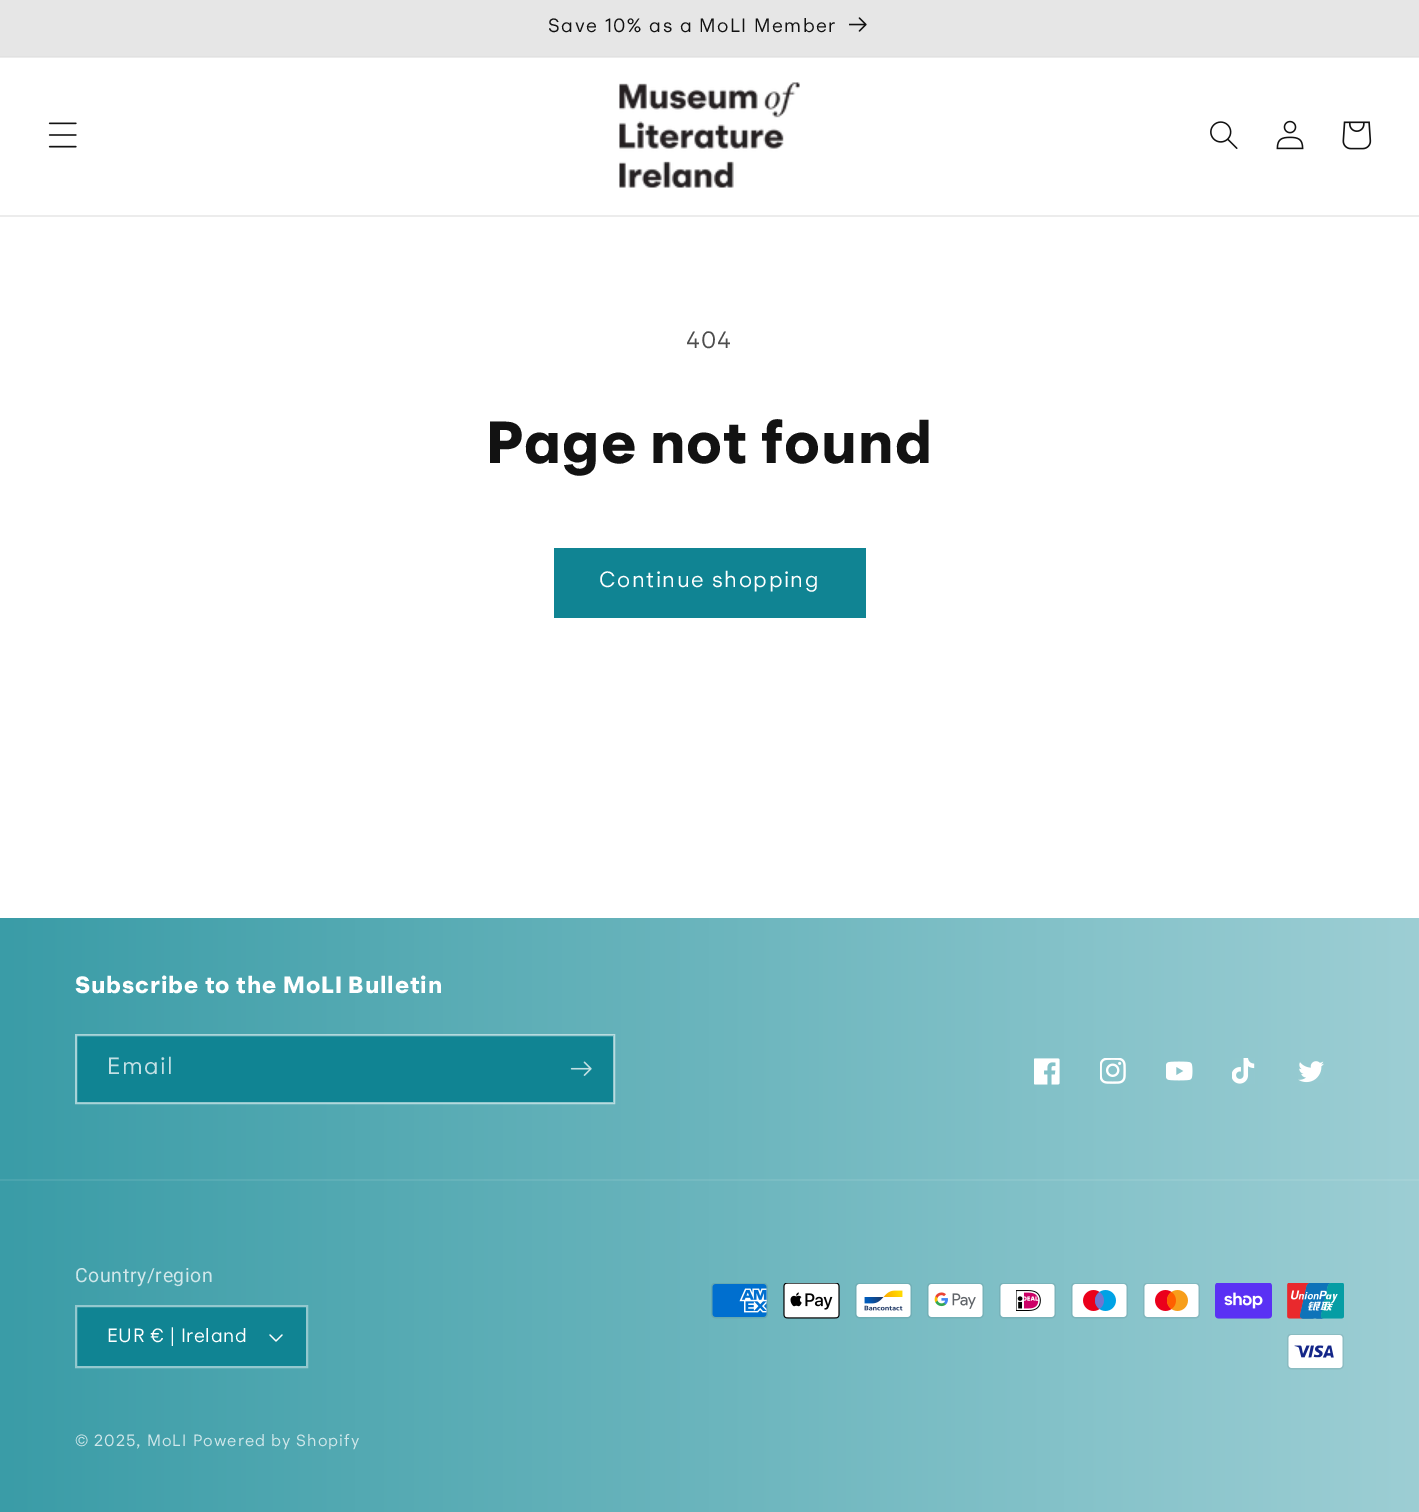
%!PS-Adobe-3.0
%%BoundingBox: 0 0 1419 1512
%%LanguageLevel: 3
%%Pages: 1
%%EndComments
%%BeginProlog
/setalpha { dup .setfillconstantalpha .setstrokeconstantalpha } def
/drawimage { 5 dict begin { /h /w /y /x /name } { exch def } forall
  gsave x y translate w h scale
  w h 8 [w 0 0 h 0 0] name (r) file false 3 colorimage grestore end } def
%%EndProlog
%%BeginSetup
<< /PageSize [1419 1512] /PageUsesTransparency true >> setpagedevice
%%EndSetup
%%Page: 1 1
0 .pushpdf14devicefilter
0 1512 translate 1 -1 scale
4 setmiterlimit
1 setgray
0 0 1419 1512 rectfill
0.925 setgray
0 57 1419 1 rectfill
0.882 setgray
0 56 1419 1 rectfill
0.902 setgray
0 0 1419 56 rectfill
(images/1.raw) 849 17 18 15 drawimage
0.925 setgray
0 215 1419 2 rectfill
(images/2.raw) 48 122 29 26 drawimage
(images/3.raw) 619 82 181 106 drawimage
(images/4.raw) 1210 121 28 28 drawimage
(images/5.raw) 1276 120 28 30 drawimage
(images/6.raw) 1342 121 30 29 drawimage
0.063 0.518 0.576 setrgbcolor
554 548 312 70 rectfill
gsave newpath 0 918 moveto 1419 918 lineto 1419 1512 lineto 0 1512 lineto closepath clip newpath
<< /ShadingType 2 /ColorSpace /DeviceRGB /Coords [0 756 1419 756] /Extend [true true] /Function << /FunctionType 2 /Domain [0 1] /C0 [0.227 0.612 0.655] /C1 [0.616 0.808 0.831] /N 1 >> >> shfill grestore
gsave newpath 0 1179 moveto 1419 1179 lineto 1419 1181 lineto 0 1181 lineto closepath clip newpath
<< /ShadingType 2 /ColorSpace /DeviceRGB /Coords [0 756 1419 756] /Extend [true true] /Function << /FunctionType 2 /Domain [0 1] /C0 [0.29 0.643 0.682] /C1 [0.647 0.824 0.843] /N 1 >> >> shfill grestore
77 1035 537 68 rectfill
0.55 setalpha
1 setgray
2 setlinewidth
76 1035 538 68 rectstroke
1 setalpha
(images/7.raw) 570 1061 22 15 drawimage
(images/8.raw) 1034 1058 26 27 drawimage
(images/9.raw) 1100 1058 26 26 drawimage
(images/10.raw) 1166 1061 27 20 drawimage
(images/11.raw) 1232 1058 23 26 drawimage
(images/12.raw) 1298 1061 26 22 drawimage
0.063 0.518 0.576 setrgbcolor
77 1307 229 59 rectfill
(images/13.raw) 269 1334 14 8 drawimage
0.576 0.784 0.808 setrgbcolor
76 1306 231 61 rectstroke
(images/14.raw) 711 1283 57 36 drawimage
(images/15.raw) 783 1283 57 36 drawimage
(images/16.raw) 855 1283 57 36 drawimage
(images/17.raw) 927 1283 57 36 drawimage
(images/18.raw) 999 1283 57 36 drawimage
(images/19.raw) 1071 1283 57 36 drawimage
(images/20.raw) 1143 1283 57 36 drawimage
(images/21.raw) 1215 1283 57 36 drawimage
(images/22.raw) 1287 1283 57 36 drawimage
(images/23.raw) 1287 1334 57 36 drawimage
/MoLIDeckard-Regular [19.5 0 0 -19.5 0 0] selectfont
0.071 setgray
548 32 moveto 1.5 0 (Save 10% as a MoLI Member) ashow
/MoLIDeckard-Regular [24 0 0 -24 0 0] selectfont
0.302 setgray
686 348 moveto 0.9 0 (404) ashow
/MoLIDeckard-Bold [60 0 0 -60 0 0] selectfont
0.071 setgray
486 463 moveto 0.9 0 (Page not found) ashow
/MoLIDeckard-Regular [22.5 0 0 -22.5 0 0] selectfont
1 setgray
599 587 moveto 1.5 0 (Continue shopping) ashow
/MoLIDeckard-Bold [24 0 0 -24 0 0] selectfont
75 993 moveto 0.9 0 (Subscribe to the MoLI Bulletin) ashow
/MoLIDeckard-Regular [24 0 0 -24 0 0] selectfont
0.765 0.878 0.894 setrgbcolor
107 1074 moveto 1.5 0 (Email) ashow
/Roboto-Regular [19.5 0 0 -19.5 0 0] selectfont
0.816 0.906 0.918 setrgbcolor
75 1282 moveto 0.6 0 (Country/region) ashow
/MoLIDeckard-Regular [19.5 0 0 -19.5 0 0] selectfont
1 setgray
107 1342 moveto 0.6 0 (EUR € | Ireland) ashow
/MoLIDeckard-Regular [16.5 0 0 -16.5 0 0] selectfont
0.816 0.906 0.918 setrgbcolor
75 1446 moveto 1 0 (© 2025,) ashow
147 1446 moveto 1 0 (MoLI) ashow
193 1446 moveto 1 0 (Powered by Shopify) ashow
.poppdf14devicefilter showpage
%%EOF
